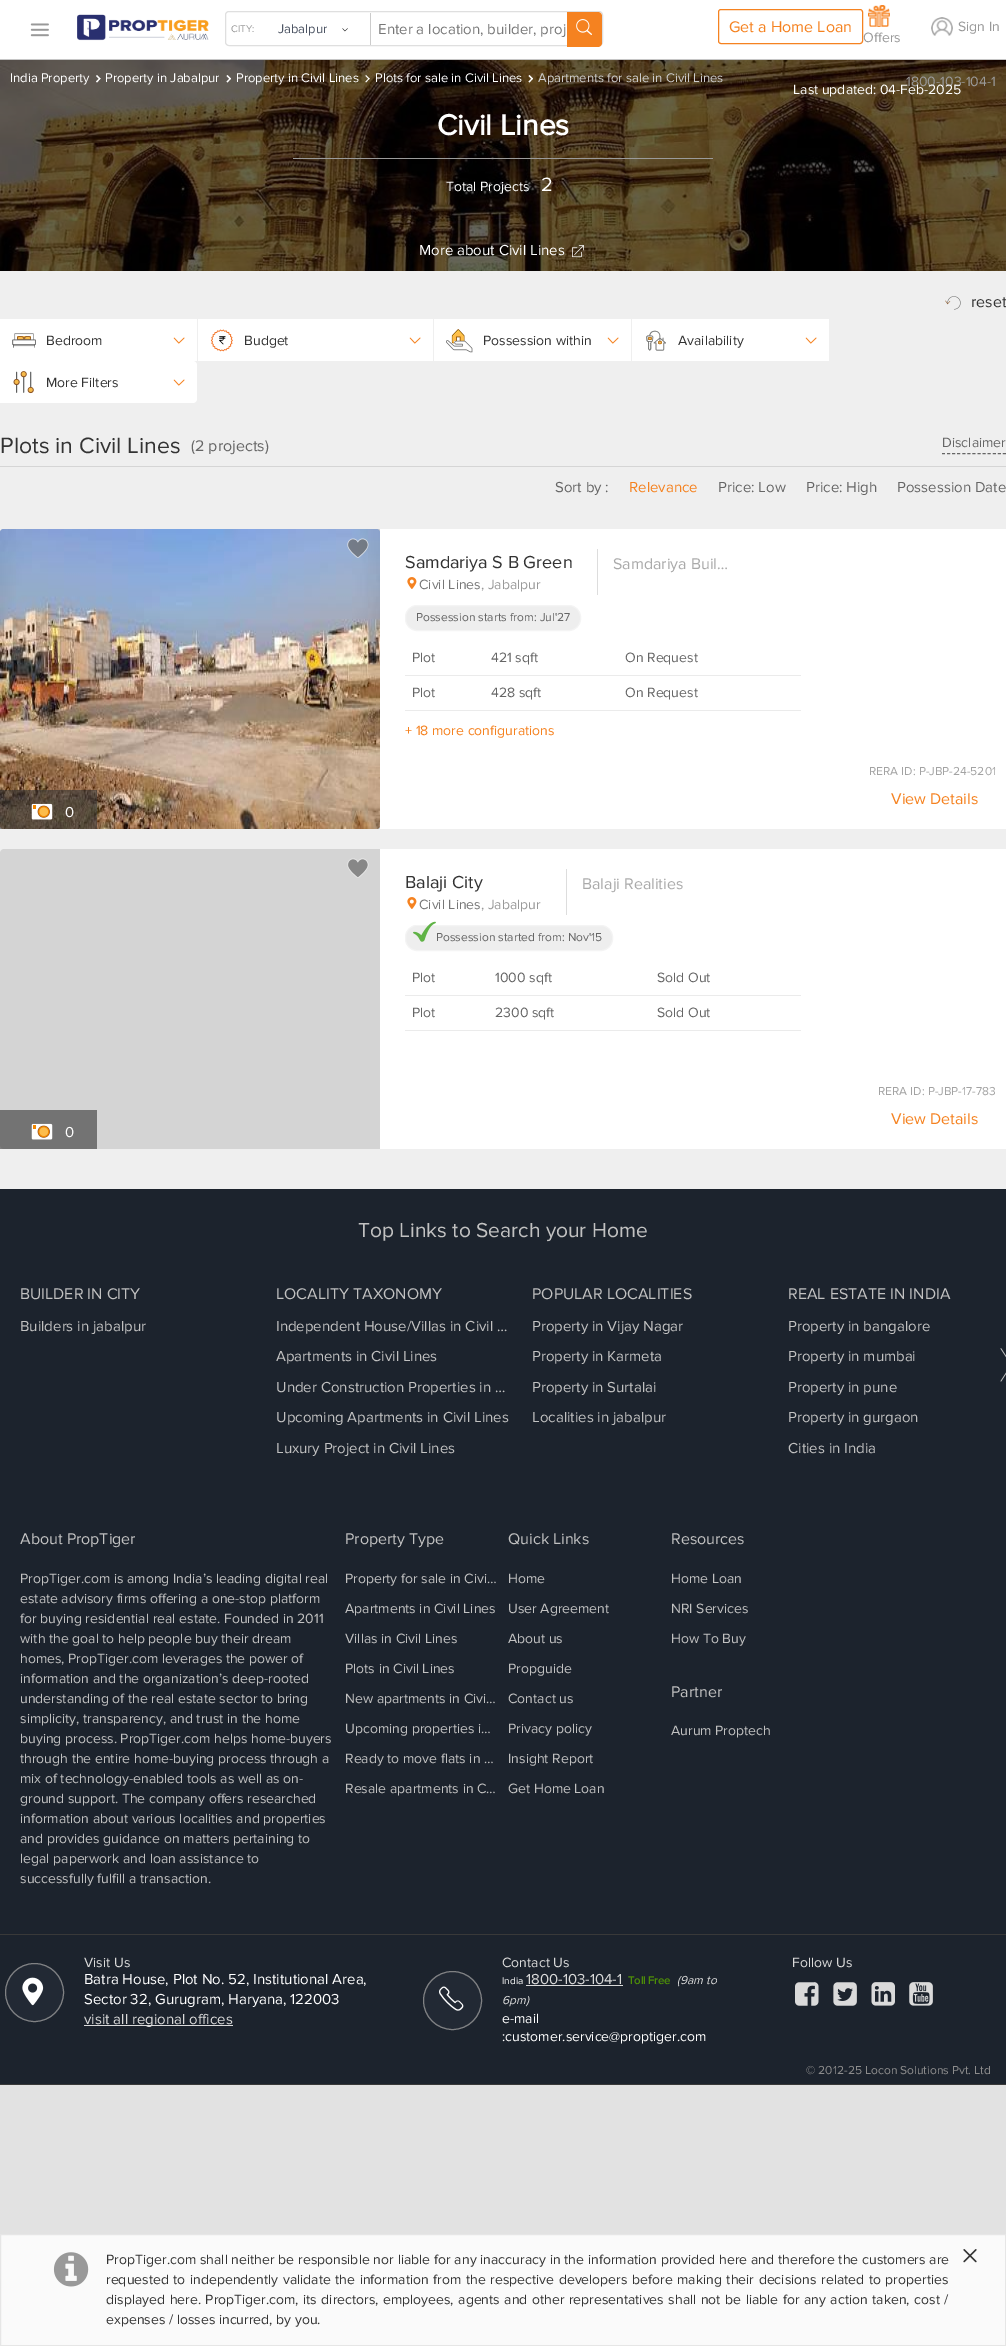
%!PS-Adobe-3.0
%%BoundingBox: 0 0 1006 2346
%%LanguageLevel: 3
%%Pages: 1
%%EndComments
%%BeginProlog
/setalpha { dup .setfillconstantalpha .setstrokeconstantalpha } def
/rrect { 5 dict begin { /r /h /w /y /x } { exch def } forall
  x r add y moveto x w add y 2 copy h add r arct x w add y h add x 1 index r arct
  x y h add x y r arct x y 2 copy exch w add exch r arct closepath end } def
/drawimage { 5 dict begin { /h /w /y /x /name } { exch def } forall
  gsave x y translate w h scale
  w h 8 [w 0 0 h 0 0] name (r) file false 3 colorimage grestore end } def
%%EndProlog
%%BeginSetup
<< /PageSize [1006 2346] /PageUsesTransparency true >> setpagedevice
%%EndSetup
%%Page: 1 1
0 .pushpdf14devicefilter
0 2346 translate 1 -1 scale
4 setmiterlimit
0.886 setgray
0 0 1006 2346 rectfill
1 setgray
0 0 1006 59 rectfill
0.776 setgray
0 59 1006 1 rectfill
(images/1.raw) 30 23 19 14 drawimage
(images/2.raw) 77 14 132 27 drawimage
0.875 setgray
225.5 11.5 377 34 3.5 rrect stroke
0.8 setgray
370 13 1 32 rectfill
(images/3.raw) 342 28 6 4 drawimage
0.961 0.51 0.125 setrgbcolor
newpath 567 12 moveto 598 12 lineto 600 12 602 14 602 16 curveto 602 43 lineto 602 45 600 47 598 47 curveto 567 47 lineto closepath fill
(images/4.raw) 576 19 16 16 drawimage
718.5 9.5 144 34 2.5 rrect stroke
(images/5.raw) 931 17 22 19 drawimage
(images/6.raw) 868 5 22 22 drawimage
0.937 setgray
0 271 1006 918 rectfill
(images/7.raw) 0 60 1006 211 drawimage
1 setgray
newpath 97 75 moveto 100.5 78.5 lineto 99.5 79.5 lineto 96 76 lineto closepath fill
newpath 99.5 78 moveto 100.5 78.5 lineto 97 82.5 lineto 96 81.5 lineto closepath fill
newpath 227.5 75 moveto 231 78.5 lineto 230 79.5 lineto 226.5 76 lineto closepath fill
newpath 230 78 moveto 231 78.5 lineto 227.5 82.5 lineto 226.5 81.5 lineto closepath fill
newpath 366 75 moveto 369.5 78.5 lineto 369 79.5 lineto 365.5 76 lineto closepath fill
newpath 369 78 moveto 369.5 78.5 lineto 366 82.5 lineto 365.5 81.5 lineto closepath fill
newpath 529.5 75 moveto 533 78.5 lineto 532 79.5 lineto 528.5 76 lineto closepath fill
newpath 532 78 moveto 533 78.5 lineto 529.5 82.5 lineto 528.5 81.5 lineto closepath fill
0.608 setgray
293 158 420 1 rectfill
(images/8.raw) 572 245 12 13 drawimage
(images/9.raw) 947 296 14 14 drawimage
(images/10.raw) 945 300 6 5 drawimage
1 setgray
0 319 197 42 rectfill
(images/11.raw) 14 333 20 7 drawimage
0.976 0.733 0.294 setrgbcolor
17 336 14 4 rectfill
(images/12.raw) 17 336 7 4 drawimage
(images/13.raw) 17 336 7 4 drawimage
(images/14.raw) 17 336 7 4 drawimage
(images/15.raw) 24 336 7 4 drawimage
(images/16.raw) 24 336 7 4 drawimage
(images/17.raw) 24 336 7 4 drawimage
0.4 setgray
newpath 35.5 344.5 moveto 12.5 344.5 lineto 12.5 340 lineto 35.5 340 lineto closepath 13 344.5 moveto 35 344.5 lineto 35 340 lineto 13 340 lineto closepath fill
(images/18.raw) 12 339 24 6 drawimage
(images/19.raw) 12 339 24 6 drawimage
(images/22.raw) 13 345 22 2 drawimage
newpath 13.5 344.5 moveto 14 344.5 lineto 14 347.5 lineto 13.5 347.5 lineto closepath fill
(images/20.raw) 13 344 1 4 drawimage
(images/21.raw) 34 344 1 4 drawimage
(images/23.raw) 173 337 12 7 drawimage
1 setgray
198 319 235 42 rectfill
(images/24.raw) 210 329 23 23 drawimage
(images/25.raw) 219 336 7 9 drawimage
(images/23.raw) 409 337 12 7 drawimage
434 319 197 42 rectfill
(images/26.raw) 451 329 14 15 drawimage
(images/27.raw) 452 330 12 13 drawimage
(images/28.raw) 452 331 12 12 drawimage
newpath 456.5 337 moveto 460 337 lineto 460 341.5 lineto 456.5 341.5 lineto closepath fill
(images/29.raw) 456 336 5 5 drawimage
454 341 11 3 rectfill
(images/30.raw) 446 340 27 13 drawimage
(images/23.raw) 607 337 12 7 drawimage
632 319 197 42 rectfill
(images/31.raw) 646 330 20 21 drawimage
(images/32.raw) 646 330 20 21 drawimage
0.976 0.733 0.294 setrgbcolor
648 337 4 3 rectfill
(images/33.raw) 648 337 4 3 drawimage
0.973 0.729 0.29 setrgbcolor
658 341 4 3 rectfill
(images/34.raw) 658 340 4 5 drawimage
(images/23.raw) 805 337 12 7 drawimage
1 setgray
newpath 0 361 moveto 193 361 lineto 195 361 197 363 197 365 curveto 197 399 lineto 197 401 195 403 193 403 curveto 0 403 lineto closepath fill
(images/35.raw) 16 371 2 9 drawimage
(images/40.raw) 23 376 2 17 drawimage
(images/37.raw) 21 371 6 6 drawimage
(images/36.raw) 20 371 7 7 drawimage
(images/38.raw) 30 371 2 17 drawimage
(images/42.raw) 16 384 2 9 drawimage
(images/41.raw) 14 379 6 6 drawimage
(images/39.raw) 13 379 7 6 drawimage
(images/44.raw) 28 387 6 6 drawimage
(images/43.raw) 27 387 7 7 drawimage
(images/23.raw) 173 379 12 7 drawimage
0.835 setgray
0 466 1006 1 rectfill
0.4 setgray
[3 2.08] 0 setdash
newpath 942 453.5 moveto 1006 453.5 lineto stroke
1 setgray
380 529 626 300 rectfill
0.867 setgray
597 549 1 46 rectfill
(images/45.raw) 407 577 10 12 drawimage
0.933 setgray
405.5 605.5 175 25 11.5 rrect gsave fill grestore
0.957 setgray
[] 0 setdash
stroke
0.922 setgray
405 675 396 1 rectfill
405 710 396 1 rectfill
0.831 setgray
newpath 4 529 moveto 380 529 lineto 380 829 lineto 4 829 lineto 2 829 0 827 0 825 curveto 0 533 lineto 0 531 2 529 4 529 curveto closepath fill
(images/46.raw) 0 529 380 300 drawimage
(images/47.raw) 0 529 380 300 drawimage
(images/48.raw) 347 538 21 20 drawimage
(images/49.raw) 347 538 22 20 drawimage
0.6 setalpha
0.2 setgray
0 790 97 39 rectfill
1 setalpha
(images/50.raw) 31 803 22 17 drawimage
0.949 0.529 0 setrgbcolor
33 805 3 4 rectfill
(images/51.raw) 37 805 13 13 drawimage
(images/52.raw) 38 806 12 12 drawimage
(images/53.raw) 39 807 10 9 drawimage
1 setgray
380 849 626 300 rectfill
0.867 setgray
566 869 1 46 rectfill
(images/45.raw) 407 897 10 12 drawimage
0.933 setgray
405.5 925.5 207 25 11.5 rrect gsave fill grestore
0.957 setgray
stroke
(images/54.raw) 413 921 23 21 drawimage
0.922 setgray
405 995 396 1 rectfill
405 1030 396 1 rectfill
0.831 setgray
newpath 4 849 moveto 380 849 lineto 380 1149 lineto 4 1149 lineto 2 1149 0 1147 0 1145 curveto 0 853 lineto 0 851 2 849 4 849 curveto closepath fill
(images/55.raw) 347 858 21 20 drawimage
(images/56.raw) 347 858 22 20 drawimage
0.6 setalpha
0.2 setgray
0 1110 97 39 rectfill
1 setalpha
(images/57.raw) 31 1123 22 17 drawimage
0.949 0.529 0 setrgbcolor
33 1125 3 4 rectfill
(images/51.raw) 37 1125 13 13 drawimage
(images/52.raw) 38 1126 12 12 drawimage
(images/53.raw) 39 1127 10 9 drawimage
0.11 0.137 0.176 setrgbcolor
0 1189 1006 895 rectfill
(images/58.raw) 1000 1348 6 34 drawimage
0.224 setgray
0 1934 1006 1 rectfill
0 2084 1006 1 rectfill
0.133 0.161 0.204 setrgbcolor
newpath 34.5 1992.5 29.5 0 360 arc closepath fill
0.8 setalpha
0.592 setgray
newpath 34.5 1992.5 29 0 360 arc closepath stroke
1 setalpha
(images/59.raw) 22 1977 22 29 drawimage
0.855 setgray
84 2025 149 1 rectfill
0.133 0.161 0.204 setrgbcolor
newpath 452.5 2000.5 29.5 0 360 arc closepath fill
0.8 setalpha
0.592 setgray
newpath 452.5 2000.5 29 0 360 arc closepath stroke
1 setalpha
(images/60.raw) 439 1986 25 25 drawimage
0.855 setgray
526 1985 97 1 rectfill
(images/61.raw) 795 1982 24 24 drawimage
(images/62.raw) 833 1982 24 24 drawimage
(images/63.raw) 871 1982 24 24 drawimage
(images/64.raw) 909 1982 24 24 drawimage
0.98 setgray
newpath 0.5 2234.5 moveto 1005.5 2234.5 lineto 1005.5 2345.5 lineto 0.5 2345.5 lineto closepath gsave fill grestore
0.902 setgray
stroke
(images/65.raw) 53 2252 36 35 drawimage
(images/66.raw) 963 2249 14 14 drawimage
/ProximaNova-Regular [10 0 0 -10 0 0] selectfont
0.6 setgray
231 32 moveto (CITY:) show
/ProximaNova-Regular [13 0 0 -13 0 0] selectfont
0.306 0.337 0.396 setrgbcolor
278 33 moveto (Jabalpur) show
/ProximaNova-Regular [15 0 0 -15 0 0] selectfont
0.467 setgray
378 34 moveto (Enter a location, builder, proj) show
/ProximaNova-Regular [16 0 0 -16 0 0] selectfont
0.961 0.51 0.125 setrgbcolor
729 32 moveto (Get a Home Loan) show
/ProximaNova-Regular [14 0 0 -14 0 0] selectfont
0.6 setgray
958 31 moveto (Sign In) show
863 42 moveto (Offers) show
906 86 moveto (1800-103-104-1) show
/ProximaNova-Regular [13 0 0 -13 0 0] selectfont
1 setgray
10 82 moveto (India Property) show
105 82 moveto (Property in Jabalpur) show
236 82 moveto (Property in Civil Lines) show
375 82 moveto (Plots for sale in Civil Lines) show
0.8 setgray
538 82 moveto (Apartments for sale in Civil Lines) show
/ProximaNova-Regular [14 0 0 -14 0 0] selectfont
1 setgray
793 94 moveto (Last updated: 04-Feb-2025) show
/ProximaNova-Bold [30 0 0 -30 0 0] selectfont
437 135 moveto (Civil Lines) show
/ProximaNova-Regular [14 0 0 -14 0 0] selectfont
446 191 moveto (Total Projects) show
/ProximaNova-Regular [20 0 0 -20 0 0] selectfont
541 191 moveto (2) show
/ProximaNova-Regular [15 0 0 -15 0 0] selectfont
419 255 moveto (More about Civil Lines) show
/ProximaNova-Regular [16 0 0 -16 0 0] selectfont
0.2 setgray
971 307 moveto (reset) show
/ProximaNova-Regular [14 0 0 -14 0 0] selectfont
46 345 moveto (Bedroom) show
244 345 moveto (Budget) show
483 345 moveto (Possession within) show
678 345 moveto (Availability) show
46 387 moveto (More Filters) show
/ProximaNova-Regular [23 0 0 -23 0 0] selectfont
0 453 moveto (Plots in Civil Lines) show
/ProximaNova-Regular [16 0 0 -16 0 0] selectfont
0.4 setgray
191 451 moveto (\(2 projects\)) show
/ProximaNova-Regular [14 0 0 -14 0 0] selectfont
942 447 moveto (Disclaimer) show
/ProximaNova-Regular [15 0 0 -15 0 0] selectfont
555 492 moveto (Sort by :) show
0.961 0.51 0.125 setrgbcolor
629 492 moveto (Relevance) show
0.4 setgray
718 492 moveto (Price: Low) show
806 492 moveto (Price: High) show
897 492 moveto (Possession Date) show
/ProximaNova-Regular [18 0 0 -18 0 0] selectfont
0.2 setgray
405 568 moveto (Samdariya S B Green) show
/ProximaNova-Regular [14 0 0 -14 0 0] selectfont
0.467 setgray
419 589 moveto (Civil Lines) show
0.6 setgray
481 589 moveto (, Jabalpur) show
/ProximaNova-Regular [16 0 0 -16 0 0] selectfont
0.667 setgray
613 569 moveto (Samdariya Buil…) show
/ProximaNova-Regular [12 0 0 -12 0 0] selectfont
0.4 setgray
416 621 moveto (Possession starts from: Jul'27) show
/ProximaNova-Regular [14 0 0 -14 0 0] selectfont
412 662 moveto (Plot) show
491 662 moveto (421 sqft) show
625 662 moveto (On Request) show
412 697 moveto (Plot) show
491 697 moveto (428 sqft) show
625 697 moveto (On Request) show
0.961 0.51 0.125 setrgbcolor
405 735 moveto (+ 18 more configurations) show
/ProximaNova-Regular [12 0 0 -12 0 0] selectfont
0.639 setgray
869 775 moveto (RERA ID: P-JBP-24-5201) show
/ProximaNova-Regular [16 0 0 -16 0 0] selectfont
0.961 0.51 0.125 setrgbcolor
891 804 moveto (View Details) show
/ProximaNova-Regular [15 0 0 -15 0 0] selectfont
1 setgray
65 817 moveto (0) show
/ProximaNova-Regular [18 0 0 -18 0 0] selectfont
0.2 setgray
405 888 moveto (Balaji City) show
/ProximaNova-Regular [14 0 0 -14 0 0] selectfont
0.467 setgray
419 909 moveto (Civil Lines) show
0.6 setgray
481 909 moveto (, Jabalpur) show
/ProximaNova-Regular [16 0 0 -16 0 0] selectfont
0.667 setgray
582 889 moveto (Balaji Realities) show
/ProximaNova-Regular [12 0 0 -12 0 0] selectfont
0.4 setgray
436 941 moveto (Possession started from: Nov'15) show
/ProximaNova-Regular [14 0 0 -14 0 0] selectfont
412 982 moveto (Plot) show
495 982 moveto (1000 sqft) show
657 982 moveto (Sold Out) show
412 1017 moveto (Plot) show
495 1017 moveto (2300 sqft) show
657 1017 moveto (Sold Out) show
/ProximaNova-Regular [12 0 0 -12 0 0] selectfont
0.639 setgray
878 1095 moveto (RERA ID: P-JBP-17-783) show
/ProximaNova-Regular [16 0 0 -16 0 0] selectfont
0.961 0.51 0.125 setrgbcolor
891 1124 moveto (View Details) show
/ProximaNova-Regular [15 0 0 -15 0 0] selectfont
1 setgray
65 1137 moveto (0) show
/ProximaNova-Regular [21 0 0 -21 0 0] selectfont
0.757 setgray
358 1237 moveto (Top Links to Search your Home) show
/ProximaNova-Regular [16 0 0 -16 0 0] selectfont
20 1299 moveto (BUILDER IN CITY) show
/ProximaNova-Regular [15 0 0 -15 0 0] selectfont
20 1331 moveto (Builders in jabalpur) show
/ProximaNova-Regular [16 0 0 -16 0 0] selectfont
276 1299 moveto (LOCALITY TAXONOMY) show
/ProximaNova-Regular [15 0 0 -15 0 0] selectfont
276 1331 moveto (Independent House/Villas in Civil …) show
276 1361 moveto (Apartments in Civil Lines) show
276 1392 moveto (Under Construction Properties in …) show
276 1422 moveto (Upcoming Apartments in Civil Lines) show
276 1453 moveto (Luxury Project in Civil Lines) show
/ProximaNova-Regular [16 0 0 -16 0 0] selectfont
532 1299 moveto (POPULAR LOCALITIES) show
/ProximaNova-Regular [15 0 0 -15 0 0] selectfont
532 1331 moveto (Property in Vijay Nagar) show
532 1361 moveto (Property in Karmeta) show
532 1392 moveto (Property in Surtalai) show
532 1422 moveto (Localities in jabalpur) show
/ProximaNova-Regular [16 0 0 -16 0 0] selectfont
788 1299 moveto (REAL ESTATE IN INDIA) show
/ProximaNova-Regular [15 0 0 -15 0 0] selectfont
788 1331 moveto (Property in bangalore) show
788 1361 moveto (Property in mumbai) show
788 1392 moveto (Property in pune) show
788 1422 moveto (Property in gurgaon) show
788 1453 moveto (Cities in India) show
/ProximaNova-Regular [16 0 0 -16 0 0] selectfont
20 1544 moveto (About PropTiger) show
/ProximaNova-Regular [14 0 0 -14 0 0] selectfont
20 1583 moveto (PropTiger.com is among India’s leading digital real) show
20 1603 moveto (estate advisory firms offering a one-stop platform) show
20 1623 moveto (for buying residential real estate. Founded in 2011) show
20 1643 moveto (with the goal to help people buy their dream) show
20 1663 moveto (homes, PropTiger.com leverages the power of) show
20 1683 moveto (information and the organization’s deep-rooted) show
20 1703 moveto (understanding of the real estate sector to bring) show
20 1723 moveto (simplicity, transparency, and trust in the home) show
20 1743 moveto (buying process. PropTiger.com helps home-buyers) show
20 1763 moveto (through the entire home-buying process through a) show
20 1783 moveto (mix of technology-enabled tools as well as on-) show
20 1803 moveto (ground support. The company offers researched) show
20 1823 moveto (information about various localities and properties) show
20 1843 moveto (and provides guidance on matters pertaining to) show
20 1863 moveto (legal paperwork and loan assistance to) show
20 1883 moveto (successfully fulfill a transaction.) show
/ProximaNova-Regular [16 0 0 -16 0 0] selectfont
345 1544 moveto (Property Type) show
/ProximaNova-Regular [14 0 0 -14 0 0] selectfont
345 1583 moveto (Property for sale in Civi…) show
345 1613 moveto (Apartments in Civil Lines) show
345 1643 moveto (Villas in Civil Lines) show
345 1673 moveto (Plots in Civil Lines) show
345 1703 moveto (New apartments in Civi…) show
345 1733 moveto (Upcoming properties i…) show
345 1763 moveto (Ready to move flats in …) show
345 1793 moveto (Resale apartments in C…) show
/ProximaNova-Regular [16 0 0 -16 0 0] selectfont
508 1544 moveto (Quick Links) show
/ProximaNova-Regular [14 0 0 -14 0 0] selectfont
508 1583 moveto (Home) show
508 1613 moveto (User Agreement) show
508 1643 moveto (About us) show
508 1673 moveto (Propguide) show
508 1703 moveto (Contact us) show
508 1733 moveto (Privacy policy) show
508 1763 moveto (Insight Report) show
508 1793 moveto (Get Home Loan) show
/ProximaNova-Regular [16 0 0 -16 0 0] selectfont
671 1544 moveto (Resources) show
/ProximaNova-Regular [14 0 0 -14 0 0] selectfont
671 1583 moveto (Home Loan) show
671 1613 moveto (NRI Services) show
671 1643 moveto (How To Buy) show
/ProximaNova-Regular [16 0 0 -16 0 0] selectfont
671 1697 moveto (Partner) show
/ProximaNova-Regular [14 0 0 -14 0 0] selectfont
671 1735 moveto (Aurum Proptech) show
0.855 setgray
84 1967 moveto (Visit Us) show
/ProximaNova-Regular [15 0 0 -15 0 0] selectfont
1 setgray
84 1984 moveto (Batra House, Plot No. 52, Institutional Area,) show
84 2004 moveto (Sector 32, Gurugram, Haryana, 122003) show
0.855 setgray
84 2024 moveto (visit all regional offices) show
/ProximaNova-Regular [14 0 0 -14 0 0] selectfont
502 1967 moveto (Contact Us) show
/ProximaNova-Regular [10 0 0 -10 0 0] selectfont
1 setgray
502 1984 moveto (India) show
/ProximaNova-Regular [15 0 0 -15 0 0] selectfont
0.855 setgray
526 1984 moveto (1800-103-104-1) show
/ProximaNova-Bold [11 0 0 -11 0 0] selectfont
0.302 0.557 0.027 setrgbcolor
628 1984 moveto (Toll Free) show
/ProximaNova-Italic [12 0 0 -12 0 0] selectfont
0.855 setgray
677 1984 moveto (\(9am to) show
502 2004 moveto (6pm\)) show
/ProximaNova-Regular [14 0 0 -14 0 0] selectfont
1 setgray
502 2023 moveto (e-mail) show
502 2041 moveto (:customer.service@proptiger.com) show
0.855 setgray
792 1967 moveto (Follow Us) show
/ProximaNova-Regular [12 0 0 -12 0 0] selectfont
0.549 setgray
806 2074 moveto (© 2012-25 Locon Solutions Pvt. Ltd) show
/ProximaNova-Regular [14 0 0 -14 0 0] selectfont
0.2 setgray
106 2264 moveto 0.2 0 32 (PropTiger.com shall neither be responsible nor liable for any inaccuracy in the information provided here and therefore the customers are) widthshow
106 2284 moveto 1 0 32 (requested to independently validate the information from the respective developers before making their decisions related to properties) widthshow
106 2304 moveto 0.9 0 32 (displayed here. PropTiger.com, its directors, employees, agents and other representatives shall not be liable for any action taken, cost /) widthshow
106 2324 moveto (expenses / losses incurred, by you.) show
.poppdf14devicefilter showpage
%%EOF
